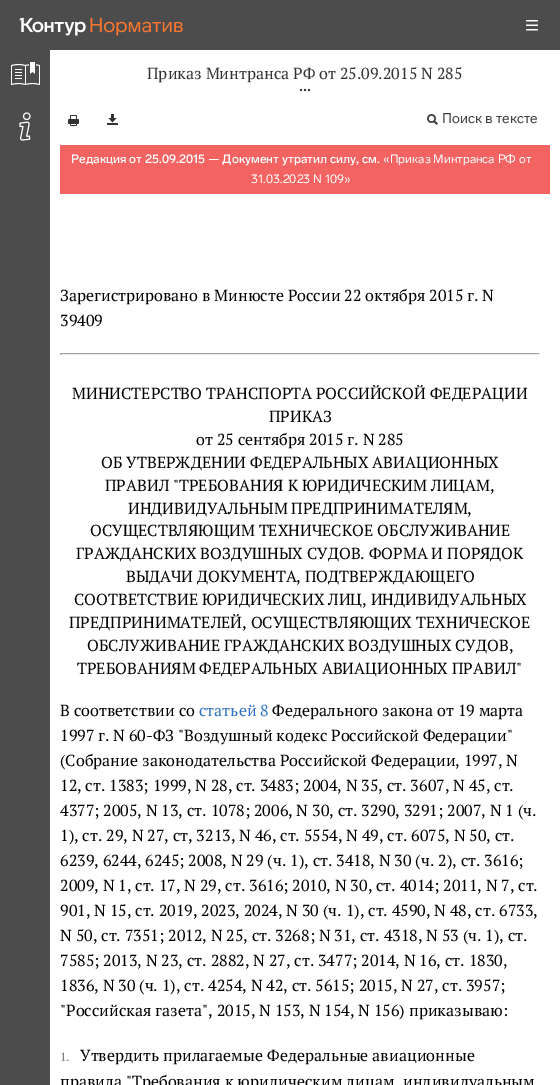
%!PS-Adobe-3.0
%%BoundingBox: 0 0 560 1085
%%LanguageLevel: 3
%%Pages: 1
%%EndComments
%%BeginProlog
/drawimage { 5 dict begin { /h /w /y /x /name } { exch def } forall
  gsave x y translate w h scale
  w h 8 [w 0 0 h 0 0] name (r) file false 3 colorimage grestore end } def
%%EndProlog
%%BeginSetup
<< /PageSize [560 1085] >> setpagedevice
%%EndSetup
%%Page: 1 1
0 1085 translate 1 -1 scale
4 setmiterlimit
1 setgray
0 0 560 1085 rectfill
0.298 setgray
0 0 560 50 rectfill
(images/1.raw) 19 17 67 19 drawimage
(images/2.raw) 90 17 93 19 drawimage
(images/3.raw) 526 20 12 11 drawimage
0 50 50 1035 rectfill
(images/4.raw) 11 62 29 24 drawimage
(images/5.raw) 19 112 12 29 drawimage
(images/6.raw) 299 88 12 4 drawimage
(images/7.raw) 68 115 11 11 drawimage
(images/8.raw) 107 114 11 11 drawimage
(images/9.raw) 427 114 11 11 drawimage
0.949 0.388 0.38 setrgbcolor
60 145 490 49 rectfill
0.624 setgray
60 353 480 1 rectfill
0.933 setgray
539 353 1 2 rectfill
60 354 480 1 rectfill
0.624 setgray
60 353 1 2 rectfill
/PTSerif-Regular [16 0 0 -16 0 0] selectfont
0.2 setgray
147 79 moveto (Приказ Минтранса РФ от 25.09.2015 N 285) show
/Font-Regular [14 0 0 -14 0 0] selectfont
0.251 setgray
442 123 moveto (Поиск в тексте) show
/Font-Medium [12 0 0 -12 0 0] selectfont
1 setgray
71 163 moveto (Редакция от 25.09.2015 — Документ утратил силу, см.) show
/Font-Regular [12 0 0 -12 0 0] selectfont
383 163 moveto («Приказ Минтранса РФ от) show
251 183 moveto (31.03.2023 N 109») show
/PTSerif-Regular [16 0 0 -16 0 0] selectfont
0 setgray
60 301 moveto (Зарегистрировано в Минюсте России 22 октября 2015 г. N) show
60 326 moveto (39409) show
72 399 moveto (МИНИСТЕРСТВО ТРАНСПОРТА РОССИЙСКОЙ ФЕДЕРАЦИИ) show
269 422 moveto (ПРИКАЗ) show
196 445 moveto (от 25 сентября 2015 г. N 285) show
101 468 moveto (ОБ УТВЕРЖДЕНИИ ФЕДЕРАЛЬНЫХ АВИАЦИОННЫХ) show
105 491 moveto (ПРАВИЛ "ТРЕБОВАНИЯ К ЮРИДИЧЕСКИМ ЛИЦАМ,) show
128 514 moveto (ИНДИВИДУАЛЬНЫМ ПРЕДПРИНИМАТЕЛЯМ,) show
90 536 moveto (ОСУЩЕСТВЛЯЮЩИМ ТЕХНИЧЕСКОЕ ОБСЛУЖИВАНИЕ) show
76 559 moveto (ГРАЖДАНСКИХ ВОЗДУШНЫХ СУДОВ. ФОРМА И ПОРЯДОК) show
126 582 moveto (ВЫДАЧИ ДОКУМЕНТА, ПОДТВЕРЖДАЮЩЕГО) show
74 605 moveto (СООТВЕТСТВИЕ ЮРИДИЧЕСКИХ ЛИЦ, ИНДИВИДУАЛЬНЫХ) show
69 628 moveto (ПРЕДПРИНИМАТЕЛЕЙ, ОСУЩЕСТВЛЯЮЩИХ ТЕХНИЧЕСКОЕ) show
87 651 moveto (ОБСЛУЖИВАНИЕ ГРАЖДАНСКИХ ВОЗДУШНЫХ СУДОВ,) show
77 674 moveto (ТРЕБОВАНИЯМ ФЕДЕРАЛЬНЫХ АВИАЦИОННЫХ ПРАВИЛ") show
60 716 moveto (В соответствии со) show
0.188 0.447 0.769 setrgbcolor
199 716 moveto (статьей 8) show
0 setgray
272 716 moveto (Федерального закона от 19 марта) show
60 741 moveto (1997 г. N 60-ФЗ "Воздушный кодекс Российской Федерации") show
60 766 moveto (\(Собрание законодательства Российской Федерации, 1997, N) show
60 791 moveto (12, ст. 1383; 1999, N 28, ст. 3483; 2004, N 35, ст. 3607, N 45, ст.) show
60 816 moveto (4377; 2005, N 13, ст. 1078; 2006, N 30, ст. 3290, 3291; 2007, N 1 \(ч.) show
60 841 moveto (1\), ст. 29, N 27, ст, 3213, N 46, ст. 5554, N 49, ст. 6075, N 50, ст.) show
60 866 moveto (6239, 6244, 6245; 2008, N 29 \(ч. 1\), ст. 3418, N 30 \(ч. 2\), ст. 3616;) show
60 891 moveto (2009, N 1, ст. 17, N 29, ст. 3616; 2010, N 30, ст. 4014; 2011, N 7, ст.) show
60 916 moveto (901, N 15, ст. 2019, 2023, 2024, N 30 \(ч. 1\), ст. 4590, N 48, ст. 6733,) show
60 941 moveto (N 50, ст. 7351; 2012, N 25, ст. 3268; N 31, ст. 4318, N 53 \(ч. 1\), ст.) show
60 966 moveto (7585; 2013, N 23, ст. 2882, N 27, ст. 3477; 2014, N 16, ст. 1830,) show
60 991 moveto (1836, N 30 \(ч. 1\), ст. 4254, N 42, ст. 5615; 2015, N 27, ст. 3957;) show
60 1016 moveto ("Российская газета", 2015, N 153, N 154, N 156\) приказываю:) show
/PTSerif-Regular [12 0 0 -12 0 0] selectfont
0.502 setgray
60 1061 moveto (1.) show
/PTSerif-Regular [16 0 0 -16 0 0] selectfont
0 setgray
80 1061 moveto (Утвердить прилагаемые Федеральные авиационные) show
60 1087 moveto (правила "Требования к юридическим лицам, индивидуальным) show
showpage
%%EOF
